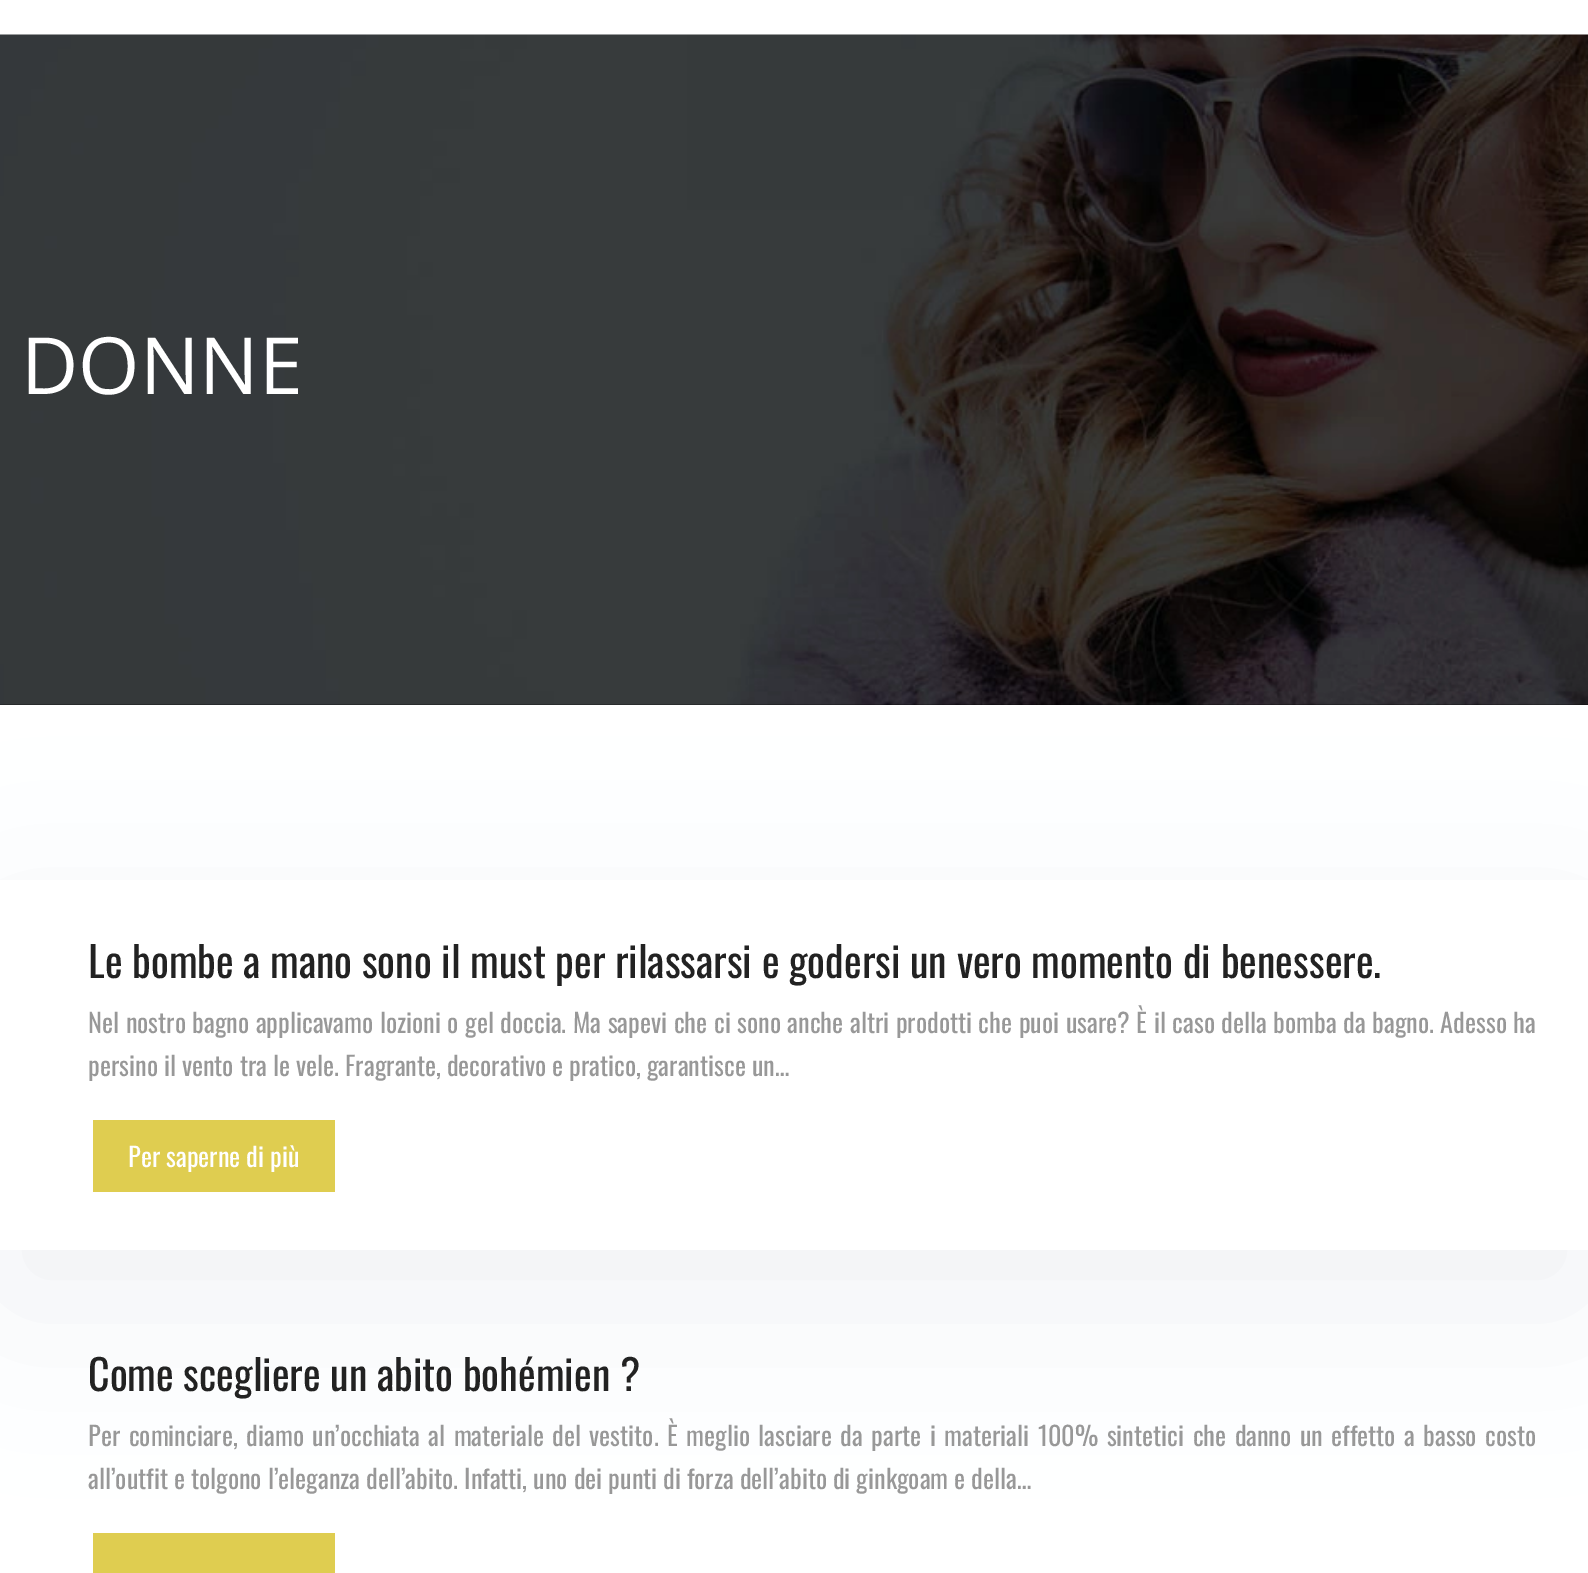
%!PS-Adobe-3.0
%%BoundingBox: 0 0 1588 1573
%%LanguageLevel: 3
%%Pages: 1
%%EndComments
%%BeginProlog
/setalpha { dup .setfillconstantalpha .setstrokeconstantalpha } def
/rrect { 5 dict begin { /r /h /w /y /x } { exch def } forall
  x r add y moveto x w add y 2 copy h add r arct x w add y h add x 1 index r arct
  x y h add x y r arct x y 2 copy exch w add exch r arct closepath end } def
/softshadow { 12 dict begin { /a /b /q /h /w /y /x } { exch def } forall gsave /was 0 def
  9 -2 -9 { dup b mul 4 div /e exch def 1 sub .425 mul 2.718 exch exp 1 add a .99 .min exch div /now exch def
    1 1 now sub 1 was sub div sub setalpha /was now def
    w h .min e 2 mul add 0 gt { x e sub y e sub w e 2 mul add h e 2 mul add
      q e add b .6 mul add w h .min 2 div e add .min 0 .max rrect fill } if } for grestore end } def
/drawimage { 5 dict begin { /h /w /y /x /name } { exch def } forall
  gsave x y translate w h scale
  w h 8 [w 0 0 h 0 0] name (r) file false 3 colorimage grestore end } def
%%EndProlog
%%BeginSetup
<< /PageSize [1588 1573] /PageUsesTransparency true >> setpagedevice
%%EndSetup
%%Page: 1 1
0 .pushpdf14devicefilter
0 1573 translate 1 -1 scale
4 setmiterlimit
1 setgray
0 0 1588 1573 rectfill
gsave
newpath 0 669 moveto 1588 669 lineto 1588 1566 lineto 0 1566 lineto closepath 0 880 moveto 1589 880 lineto 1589 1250 lineto 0 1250 lineto closepath eoclip newpath
0.867 0.878 0.906 setrgbcolor
0 933 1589 369 0 87.5 0.5 softshadow
grestore
(images/1.raw) 0 34 1588 671 drawimage
0.875 0.804 0.314 setrgbcolor
93 1120 242 72 rectfill
93 1533 242 40 rectfill
/OpenSans-Regular [79 0 0 -79 0 0] selectfont
1 setgray
21 394 moveto (DONNE) show
/Oswald-Regular [42 0 0 -42 0 0] selectfont
0.133 setgray
88 978 moveto (Le bombe a mano sono il must per rilassarsi e godersi un vero momento di benessere.) show
/Oswald-Regular [26.25 0 0 -26.25 0 0] selectfont
0.596 setgray
88 1033 moveto 0.6 0 32 (Nel nostro bagno applicavamo lozioni o gel doccia. Ma sapevi che ci sono anche altri prodotti che puoi usare? È il caso della bomba da bagno. Adesso ha) widthshow
88 1076 moveto (persino il vento tra le vele. Fragrante, decorativo e pratico, garantisce un…) show
1 setgray
128 1167 moveto (Per saperne di più) show
/Oswald-Regular [42 0 0 -42 0 0] selectfont
0.133 setgray
88 1391 moveto (Come scegliere un abito bohémien ?) show
/Oswald-Regular [26.25 0 0 -26.25 0 0] selectfont
0.596 setgray
88 1446 moveto 2.5 0 32 (Per cominciare, diamo un’occhiata al materiale del vestito. È meglio lasciare da parte i materiali 100% sintetici che danno un effetto a basso costo) widthshow
88 1489 moveto (all’outfit e tolgono l’eleganza dell’abito. Infatti, uno dei punti di forza dell’abito di ginkgoam e della…) show
.poppdf14devicefilter showpage
%%EOF
